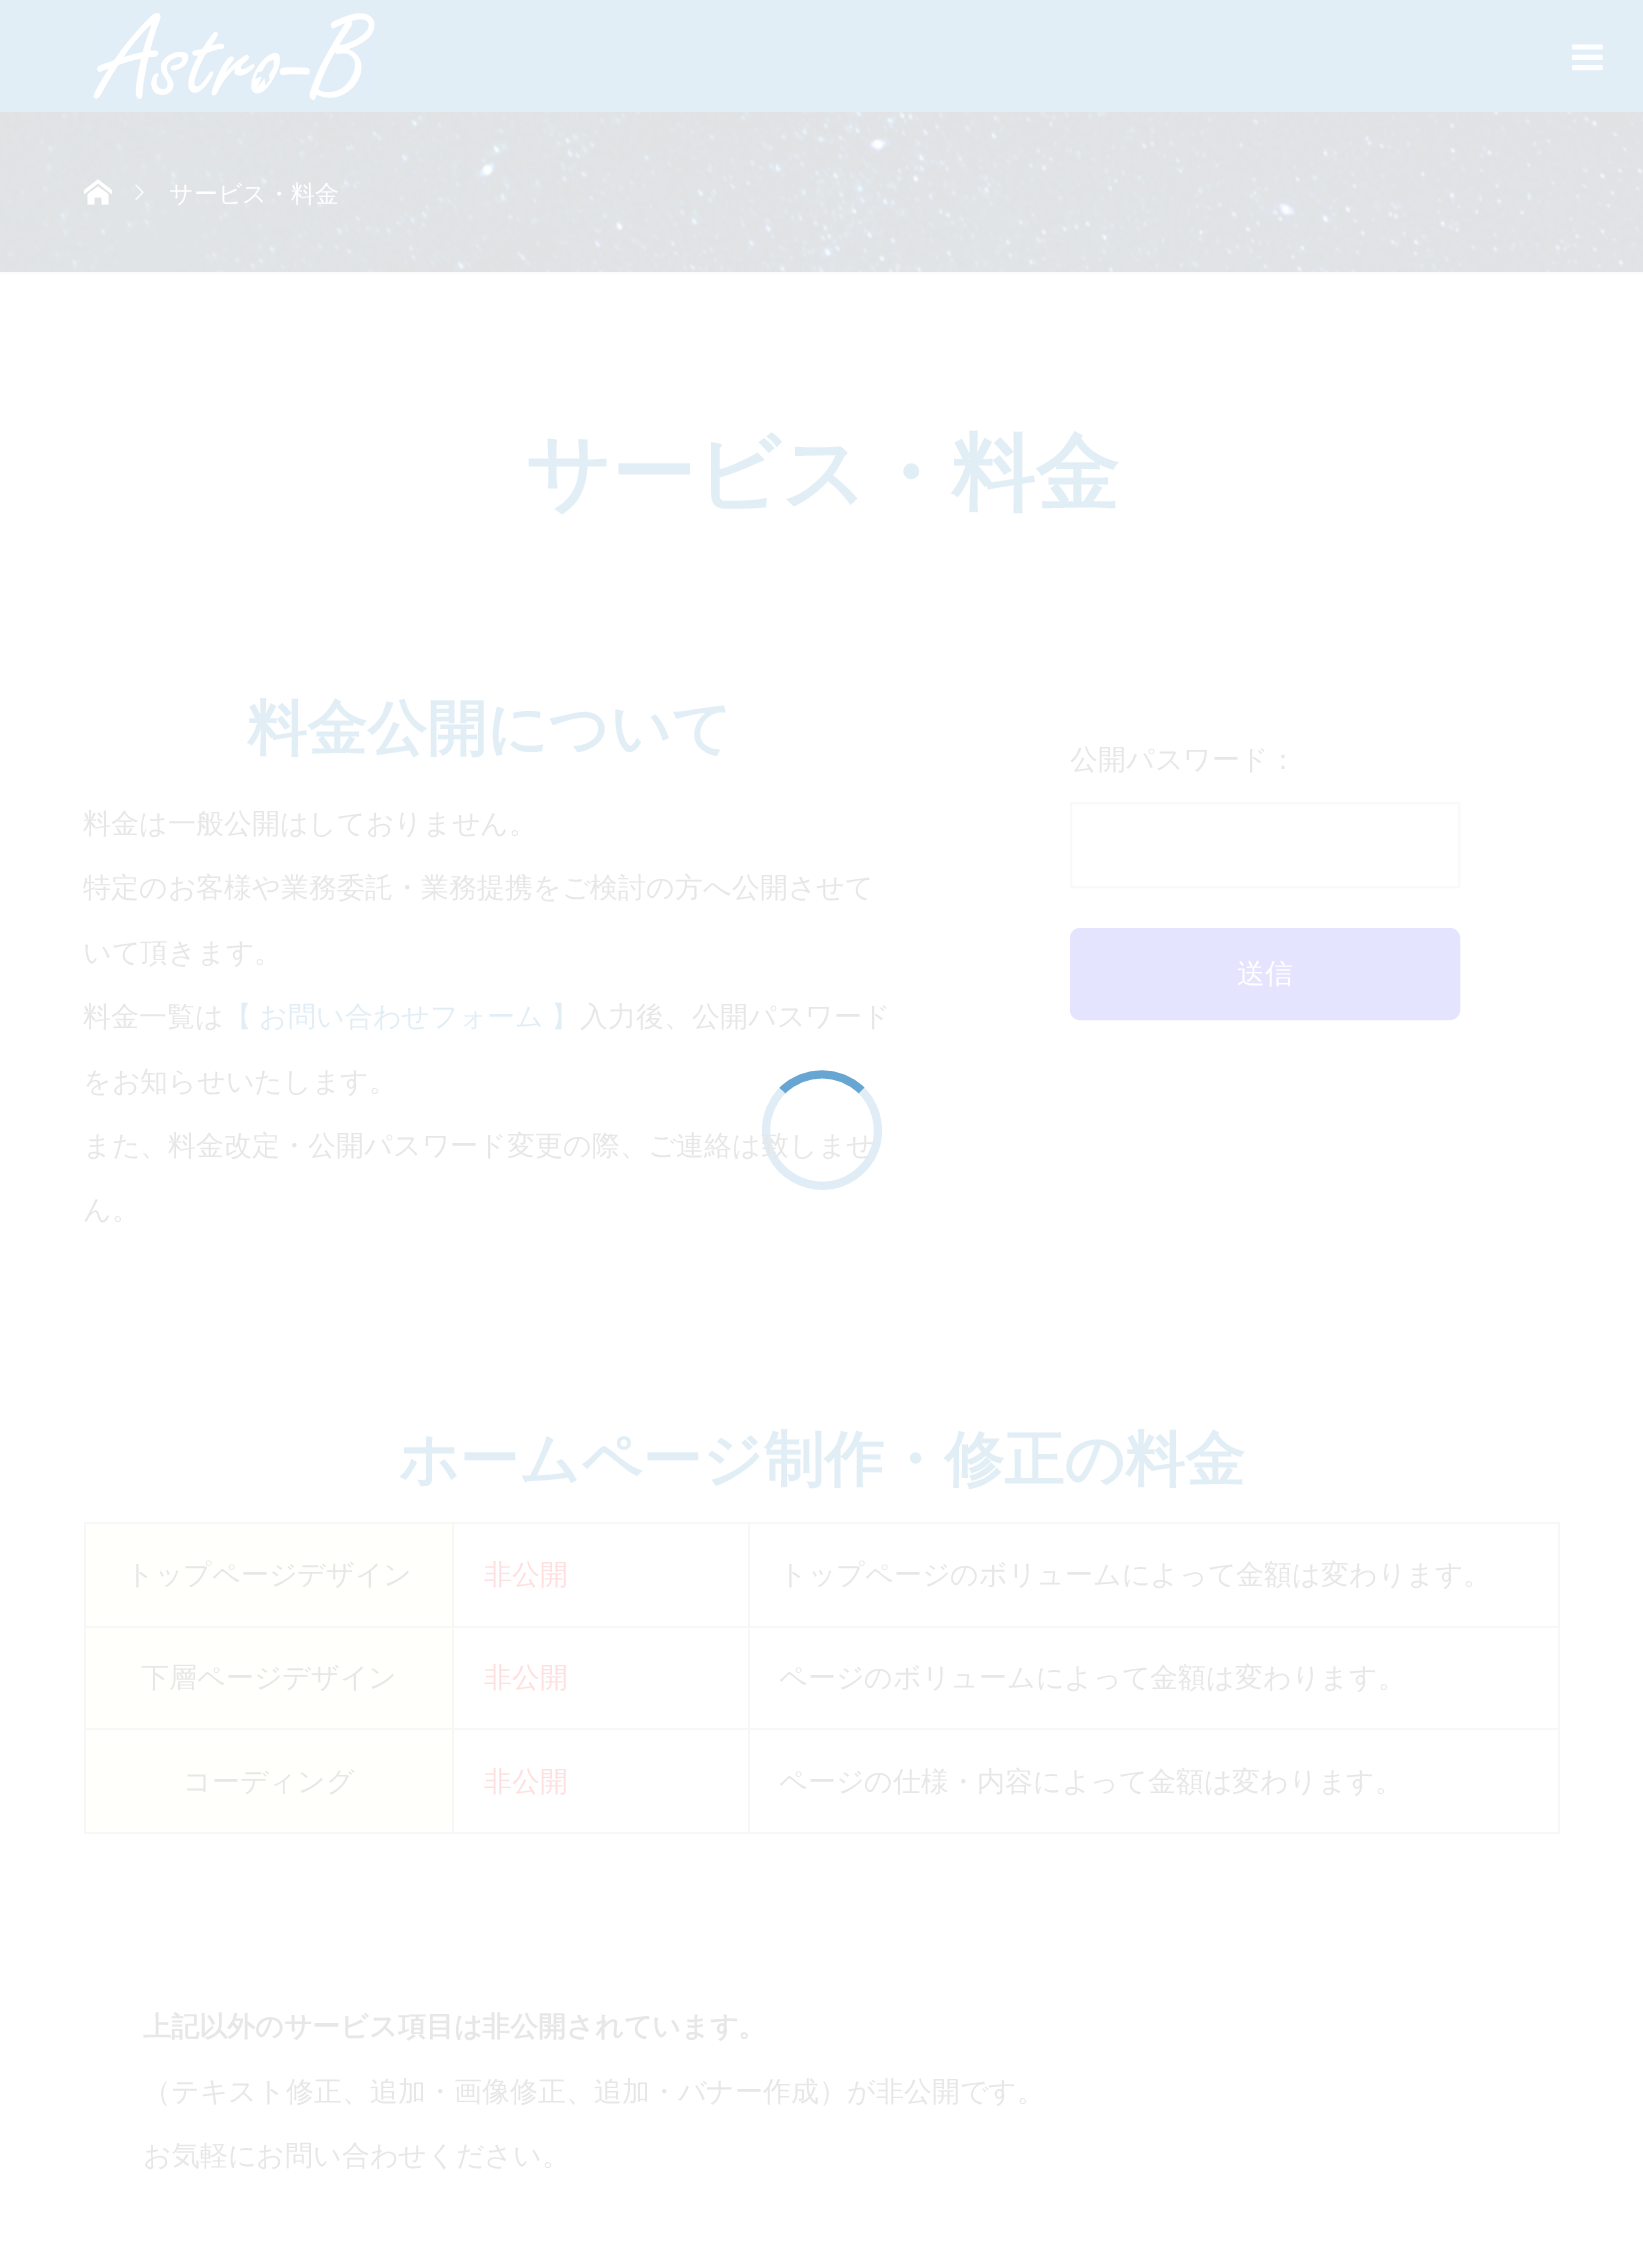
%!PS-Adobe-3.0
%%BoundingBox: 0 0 1643 2260
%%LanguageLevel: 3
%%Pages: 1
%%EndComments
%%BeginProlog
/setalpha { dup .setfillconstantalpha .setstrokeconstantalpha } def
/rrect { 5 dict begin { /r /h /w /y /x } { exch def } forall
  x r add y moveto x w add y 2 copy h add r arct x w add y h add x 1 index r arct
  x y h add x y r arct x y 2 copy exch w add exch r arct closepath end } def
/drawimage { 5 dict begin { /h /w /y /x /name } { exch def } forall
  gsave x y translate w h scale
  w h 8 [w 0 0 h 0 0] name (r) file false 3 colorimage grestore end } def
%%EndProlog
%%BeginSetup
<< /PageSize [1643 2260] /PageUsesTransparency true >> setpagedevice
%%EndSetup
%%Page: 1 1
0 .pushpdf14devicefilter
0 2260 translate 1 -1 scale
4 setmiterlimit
1 setgray
0 0 1643 2260 rectfill
0.886 0.933 0.965 setrgbcolor
0 0 1643 112 rectfill
(images/1.raw) 93 13 282 87 drawimage
(images/2.raw) 1572 44 31 27 drawimage
(images/3.raw) 0 112 1643 160 drawimage
0.984 setgray
0 272 1643 2 rectfill
(images/4.raw) 84 179 28 26 drawimage
(images/5.raw) 135 184 9 16 drawimage
0.976 setgray
2 setlinewidth
1071 803 388 84 rectstroke
0.894 0.894 1 setrgbcolor
1072 930 386 88 8 rrect gsave fill grestore
4 setlinewidth
stroke
1 1 0.984 setrgbcolor
86 1524 366 102 rectfill
0.969 setgray
748 1522 812 2 rectfill
748 1626 812 2 rectfill
748 1728 812 2 rectfill
1558 1728 2 106 rectfill
748 1832 812 2 rectfill
748 1728 2 106 rectfill
452 1728 298 2 rectfill
748 1626 2 104 rectfill
452 1626 298 2 rectfill
748 1522 2 106 rectfill
452 1522 298 2 rectfill
452 1832 298 2 rectfill
452 1728 2 106 rectfill
84 1728 370 2 rectfill
452 1626 2 104 rectfill
84 1626 370 2 rectfill
452 1522 2 106 rectfill
84 1522 370 2 rectfill
84 1832 370 2 rectfill
84 1728 2 106 rectfill
84 1626 2 104 rectfill
84 1522 2 106 rectfill
1558 1626 2 104 rectfill
1558 1522 2 106 rectfill
1 1 0.984 setrgbcolor
86 1628 366 100 rectfill
86 1730 366 102 rectfill
0.404 0.647 0.827 setrgbcolor
8 setlinewidth
newpath 782.5 1090.5 moveto 804 1069 840 1069 861.5 1090.5 curveto stroke
0.13 setalpha
0.051 0.435 0.722 setrgbcolor
newpath 861.5 1090.5 moveto 874.5 1103.5 880.5 1123 877 1141 curveto 875 1152 869.5 1162 861.5 1169.5 curveto 826.5 1204.5 766 1179.5 766 1130 curveto 766 1115.5 772 1101 782.5 1090.5 curveto stroke
/WenQuanYiZenHei-Medium [24 0 0 -24 0 0] selectfont
1 setalpha
1 setgray
169 202 moveto (サービス・料金) show
/WenQuanYiZenHei-Bold [84 0 0 -84 0 0] selectfont
0.886 0.933 0.965 setrgbcolor
525 502 moveto (サービス・料金) show
/WenQuanYiZenHei-Bold [60 0 0 -60 0 0] selectfont
247 749 moveto (料金公開について) show
/WenQuanYiZenHei-Medium [28 0 0 -28 0 0] selectfont
0.906 setgray
83 833 moveto (料金は一般公開はしておりません。) show
83 897 moveto (特定のお客様や業務委託・業務提携をご検討の方へ公開させて) show
83 962 moveto (いて頂きます。) show
83 1026 moveto (料金一覧は) show
0.886 0.933 0.965 setrgbcolor
224 1026 moveto -1 0 32 (【 お問い合わせフォーム 】) widthshow
0.906 setgray
580 1026 moveto (入力後、公開パスワード) show
83 1091 moveto (をお知らせいたします。) show
83 1155 moveto (また、料金改定・公開パスワード変更の際、ご連絡は致しませ) show
83 1219 moveto (ん。) show
1070 769 moveto (公開パスワード：) show
1 setgray
1237 983 moveto (送信) show
/WenQuanYiZenHei-Bold [60 0 0 -60 0 0] selectfont
0.886 0.933 0.965 setrgbcolor
398 1480 moveto (ホームページ制作・修正の料金) show
/WenQuanYiZenHei-Medium [28 0 0 -28 0 0] selectfont
0.906 setgray
126 1584 moveto (トップページデザイン) show
1 0.878 0.878 setrgbcolor
484 1584 moveto (非公開) show
0.906 setgray
779 1584 moveto (トップページのボリュームによって金額は変わります。) show
141 1687 moveto (下層ページデザイン) show
1 0.878 0.878 setrgbcolor
484 1687 moveto (非公開) show
0.906 setgray
779 1687 moveto (ページのボリュームによって金額は変わります。) show
183 1791 moveto (コーディング) show
1 0.878 0.878 setrgbcolor
484 1791 moveto (非公開) show
0.906 setgray
779 1791 moveto (ページの仕様・内容によって金額は変わります。) show
/WenQuanYiZenHei-Bold [28 0 0 -28 0 0] selectfont
143 2036 moveto (上記以外のサービス項目は非公開されています。) show
/WenQuanYiZenHei-Medium [28 0 0 -28 0 0] selectfont
143 2101 moveto (（テキスト修正、追加・画像修正、追加・バナー作成）が非公開です。) show
143 2165 moveto (お気軽にお問い合わせください。) show
.poppdf14devicefilter showpage
%%EOF
